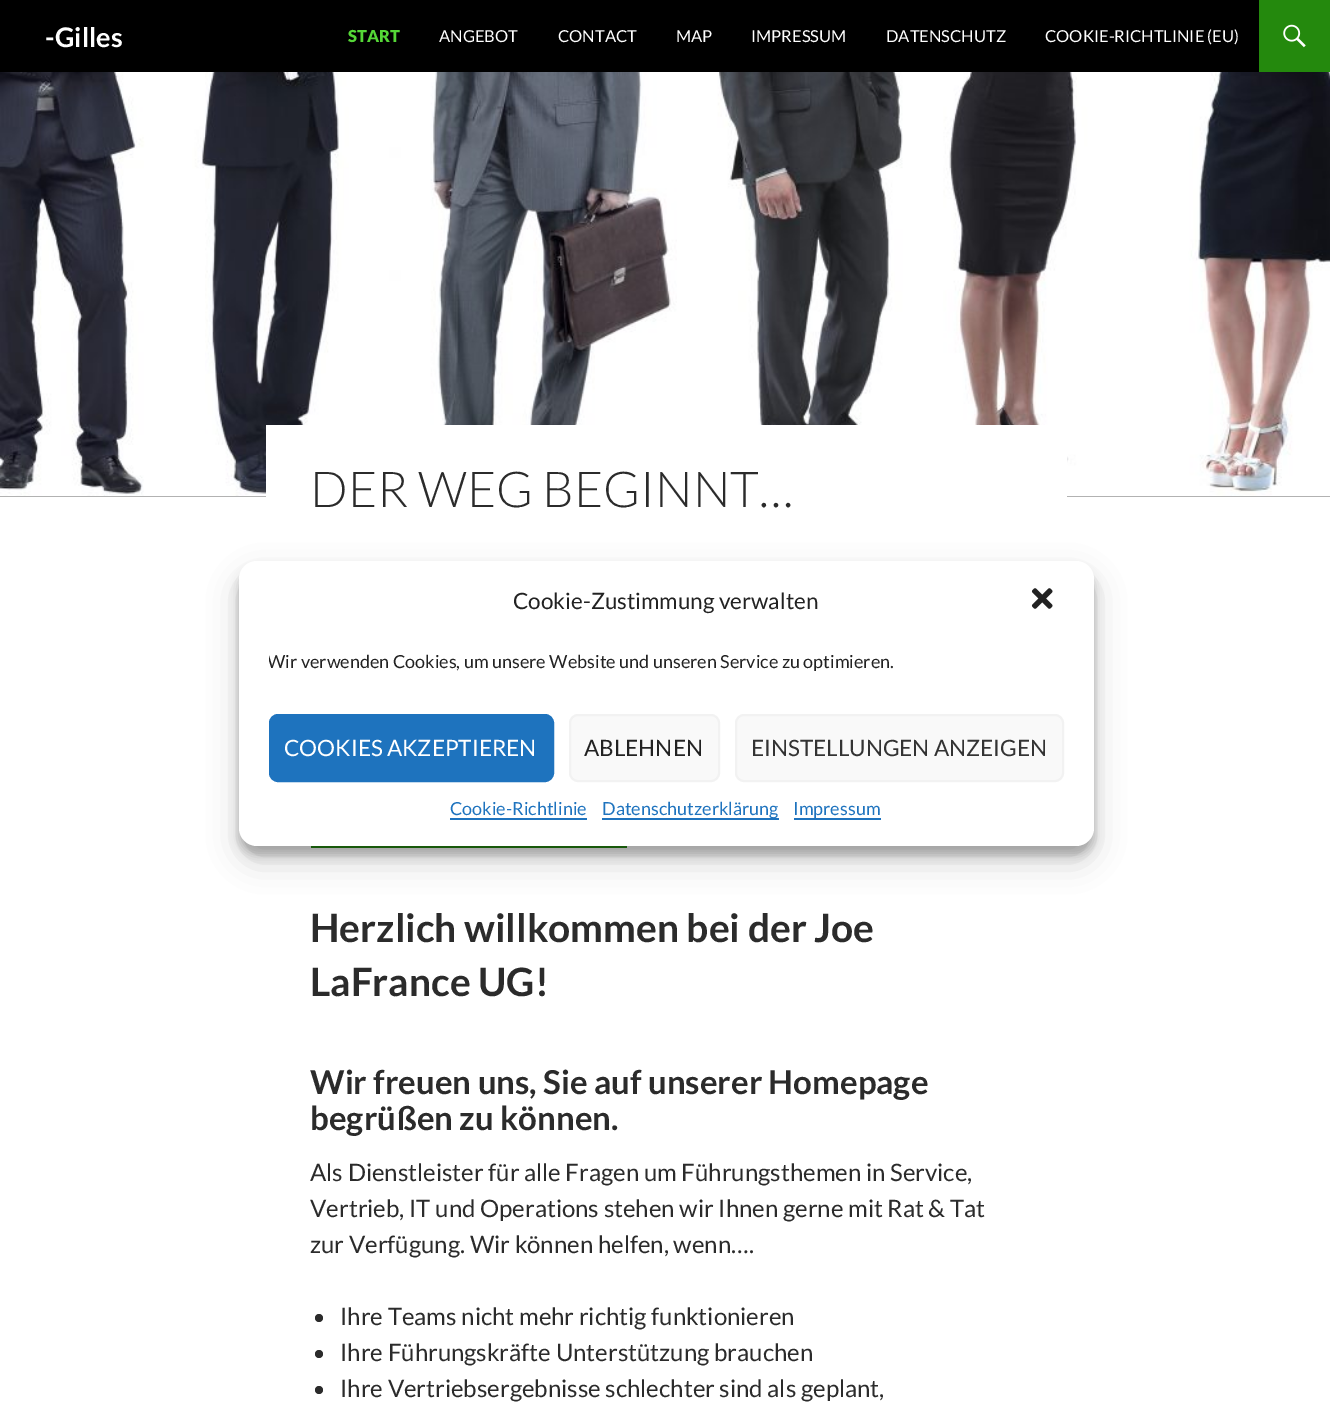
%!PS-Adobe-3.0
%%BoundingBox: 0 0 1330 1405
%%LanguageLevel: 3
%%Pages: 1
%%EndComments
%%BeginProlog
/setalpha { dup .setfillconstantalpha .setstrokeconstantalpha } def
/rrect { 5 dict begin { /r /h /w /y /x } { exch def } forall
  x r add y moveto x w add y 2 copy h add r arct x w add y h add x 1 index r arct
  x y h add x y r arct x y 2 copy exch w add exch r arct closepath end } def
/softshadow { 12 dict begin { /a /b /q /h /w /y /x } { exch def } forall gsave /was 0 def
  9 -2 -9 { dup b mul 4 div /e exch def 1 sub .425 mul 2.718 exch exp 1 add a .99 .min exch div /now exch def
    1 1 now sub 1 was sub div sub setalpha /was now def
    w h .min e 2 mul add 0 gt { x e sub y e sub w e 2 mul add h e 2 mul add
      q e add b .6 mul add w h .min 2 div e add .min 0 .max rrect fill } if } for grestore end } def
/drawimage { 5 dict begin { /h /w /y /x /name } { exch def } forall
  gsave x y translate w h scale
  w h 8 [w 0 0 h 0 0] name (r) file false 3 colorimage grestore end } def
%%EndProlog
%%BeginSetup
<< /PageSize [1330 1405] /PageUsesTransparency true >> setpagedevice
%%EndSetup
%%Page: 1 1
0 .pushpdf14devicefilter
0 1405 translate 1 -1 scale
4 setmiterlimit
1 setgray
0 0 1330 1405 rectfill
0 setgray
0 0 1259 72 rectfill
0.141 0.537 0.051 setrgbcolor
1259 0 71 72 rectfill
(images/1.raw) 1283 24 23 24 drawimage
0.698 setgray
0 496 1330 1 rectfill
(images/2.raw) 0 72 1330 424 drawimage
1 setgray
266 425 801 72 rectfill
0.141 0.537 0.051 setrgbcolor
311 846 316 2 rectfill
0.169 setgray
newpath 319 1318 4 0 360 arc closepath fill
newpath 319 1354 4 0 360 arc closepath fill
newpath 319 1390 4 0 360 arc closepath fill
0 setgray
239 570 855 285 18 4.5 0.23 softshadow
239 576 855 285 18 15 0.19 softshadow
1 setgray
239 561 855 285 18 rrect fill
(images/3.raw) 1031 588 22 21 drawimage
0.118 0.451 0.745 setrgbcolor
270 715 283 66 8 rrect gsave fill grestore
2 setlinewidth
stroke
0.976 setgray
570 715 149 66 8 rrect gsave fill grestore
0.949 setgray
stroke
0.976 setgray
736 715 327 66 8 rrect gsave fill grestore
0.949 setgray
stroke
0.118 0.451 0.745 setrgbcolor
450 818 137 2 rectfill
602 818 177 2 rectfill
794 818 87 2 rectfill
/Lato-Bold [27 0 0 -27 0 0] selectfont
1 setgray
45 47 moveto (-Gilles) show
/Lato-Black [16.5 0 0 -16.5 0 0] selectfont
0.333 0.843 0.216 setrgbcolor
348 42 moveto (START) show
/Lato-Regular [16.5 0 0 -16.5 0 0] selectfont
1 setgray
439 42 moveto (ANGEBOT) show
558 42 moveto (CONTACT) show
676 42 moveto (MAP) show
751 42 moveto (IMPRESSUM) show
886 42 moveto (DATENSCHUTZ) show
1045 42 moveto (COOKIE-RICHTLINIE \(EU\)) show
/Lato-Light [49.5 0 0 -49.5 0 0] selectfont
0.169 setgray
310 507 moveto (DER WEG BEGINNT…) show
/Lato-Bold [39 0 0 -39 0 0] selectfont
310 942 moveto (Herzlich willkommen bei der Joe) show
310 996 moveto (LaFrance UG!) show
/Lato-Bold [33 0 0 -33 0 0] selectfont
310 1094 moveto (Wir freuen uns, Sie auf unserer Homepage) show
310 1130 moveto (begrüßen zu können.) show
/Lato-Regular [24 0 0 -24 0 0] selectfont
310 1181 moveto (Als Dienstleister für alle Fragen um Führungsthemen in Service,) show
310 1217 moveto (Vertrieb, IT und Operations stehen wir Ihnen gerne mit Rat & Tat) show
310 1253 moveto (zur Verfügung. Wir können helfen, wenn….) show
340 1325 moveto (Ihre Teams nicht mehr richtig funktionieren) show
340 1361 moveto (Ihre Führungskräfte Unterstützung brauchen) show
340 1397 moveto (Ihre Vertriebsergebnisse schlechter sind als geplant,) show
/Lato-Regular [22.5 0 0 -22.5 0 0] selectfont
0.133 setgray
513 609 moveto (Cookie-Zustimmung verwalten) show
gsave
269 650 795 34 rectclip
/Lato-Regular [18 0 0 -18 0 0] selectfont
267 668 moveto (Wir verwenden Cookies, um unsere Website und unseren Service zu optimieren.) show
grestore
1 setgray
284 756 moveto (COOKIES AKZEPTIEREN) show
0.133 setgray
584 756 moveto (ABLEHNEN) show
0.2 setgray
751 756 moveto (EINSTELLUNGEN ANZEIGEN) show
/Lato-Regular [18 0 0 -18 0 0] selectfont
0.118 0.451 0.745 setrgbcolor
450 815 moveto (Cookie-Richtlinie) show
602 815 moveto (Datenschutzerklärung) show
793 815 moveto (Impressum) show
.poppdf14devicefilter showpage
%%EOF
